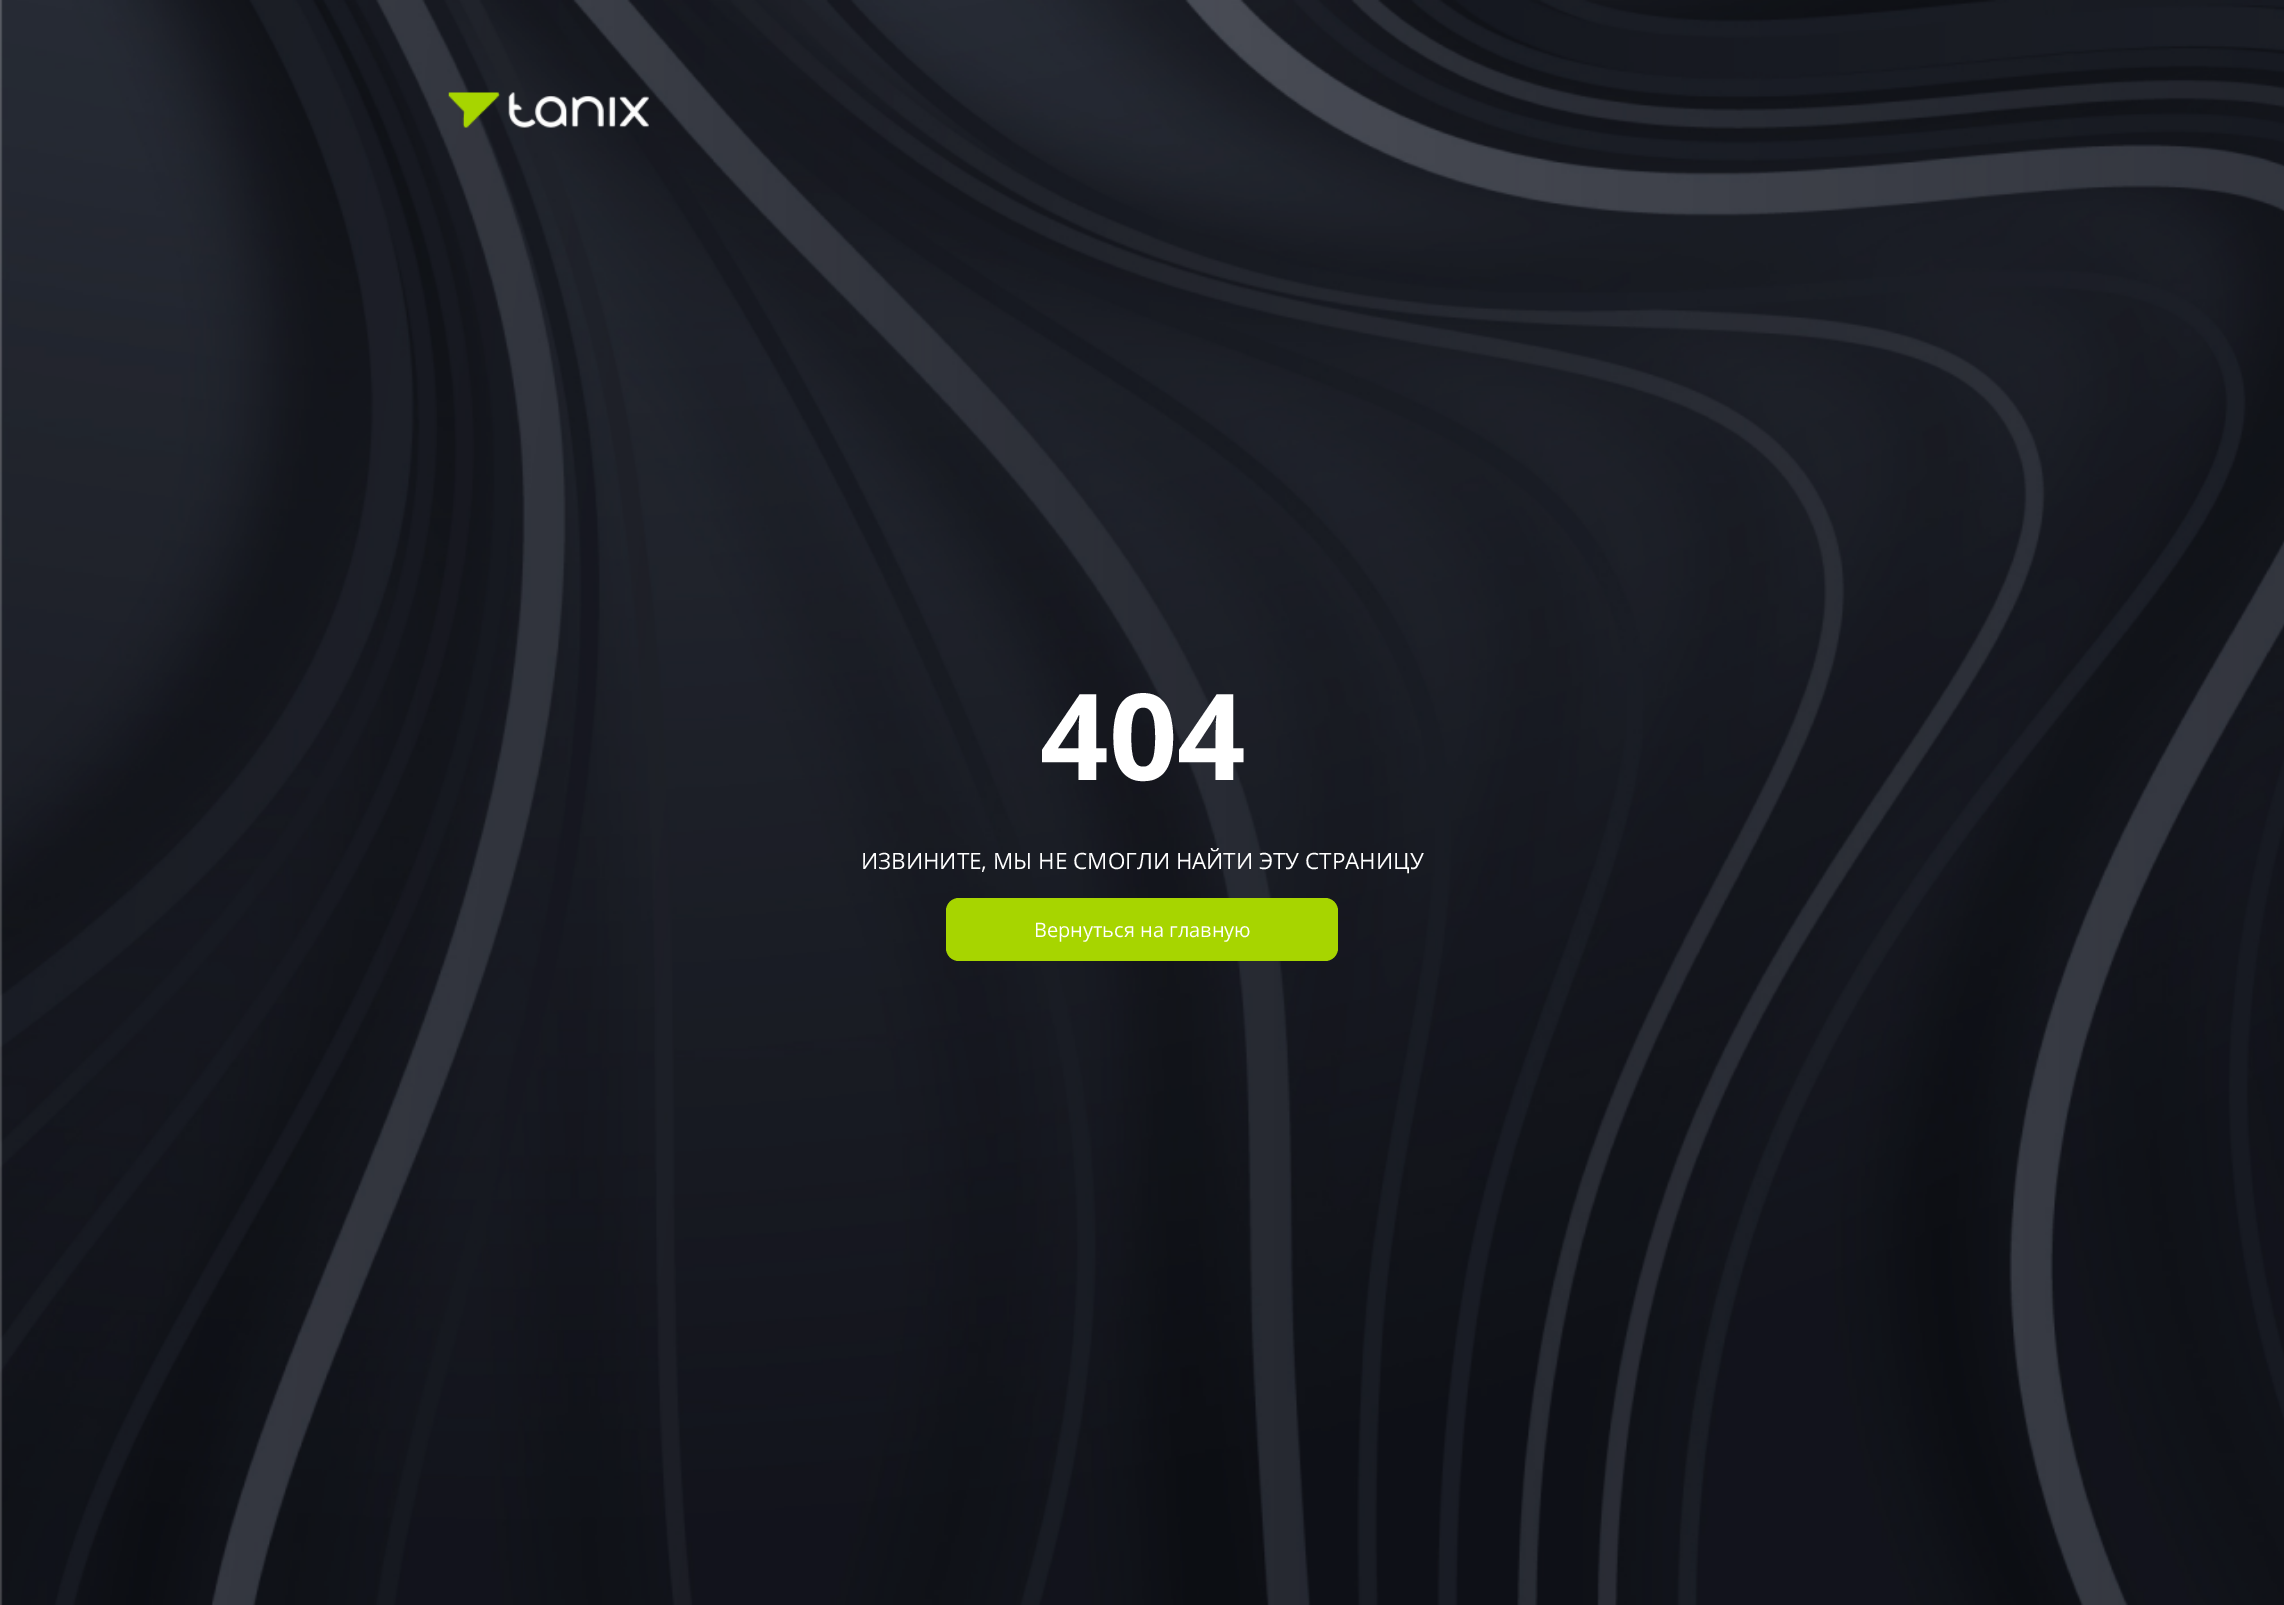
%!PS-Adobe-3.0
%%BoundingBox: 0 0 2284 1605
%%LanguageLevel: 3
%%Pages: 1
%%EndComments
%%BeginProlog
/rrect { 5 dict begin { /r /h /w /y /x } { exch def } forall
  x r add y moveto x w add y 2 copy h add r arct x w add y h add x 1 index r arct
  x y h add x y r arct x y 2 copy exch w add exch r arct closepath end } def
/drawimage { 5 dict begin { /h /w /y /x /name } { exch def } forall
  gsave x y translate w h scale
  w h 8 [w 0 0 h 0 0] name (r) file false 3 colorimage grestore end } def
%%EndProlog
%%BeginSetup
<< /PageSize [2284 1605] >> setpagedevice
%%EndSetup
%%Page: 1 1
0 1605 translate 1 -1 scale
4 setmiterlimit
1 setgray
0 0 2284 1605 rectfill
(images/2.raw) 0 0 2284 1605 drawimage
(images/1.raw) 448 92 201 36 drawimage
0.655 0.835 0 setrgbcolor
946 898 392 63 13 rrect fill
/OpenSans-Bold [120 0 0 -120 0 0] selectfont
1 setgray
1040 780 moveto (404) show
/OpenSans-Regular [22.5 0 0 -22.5 0 0] selectfont
861 869 moveto (ИЗВИНИТЕ, МЫ НЕ СМОГЛИ НАЙТИ ЭТУ СТРАНИЦУ) show
/OpenSans-Regular [20 0 0 -20 0 0] selectfont
1034 937 moveto (Вернуться на главную) show
showpage
%%EOF
